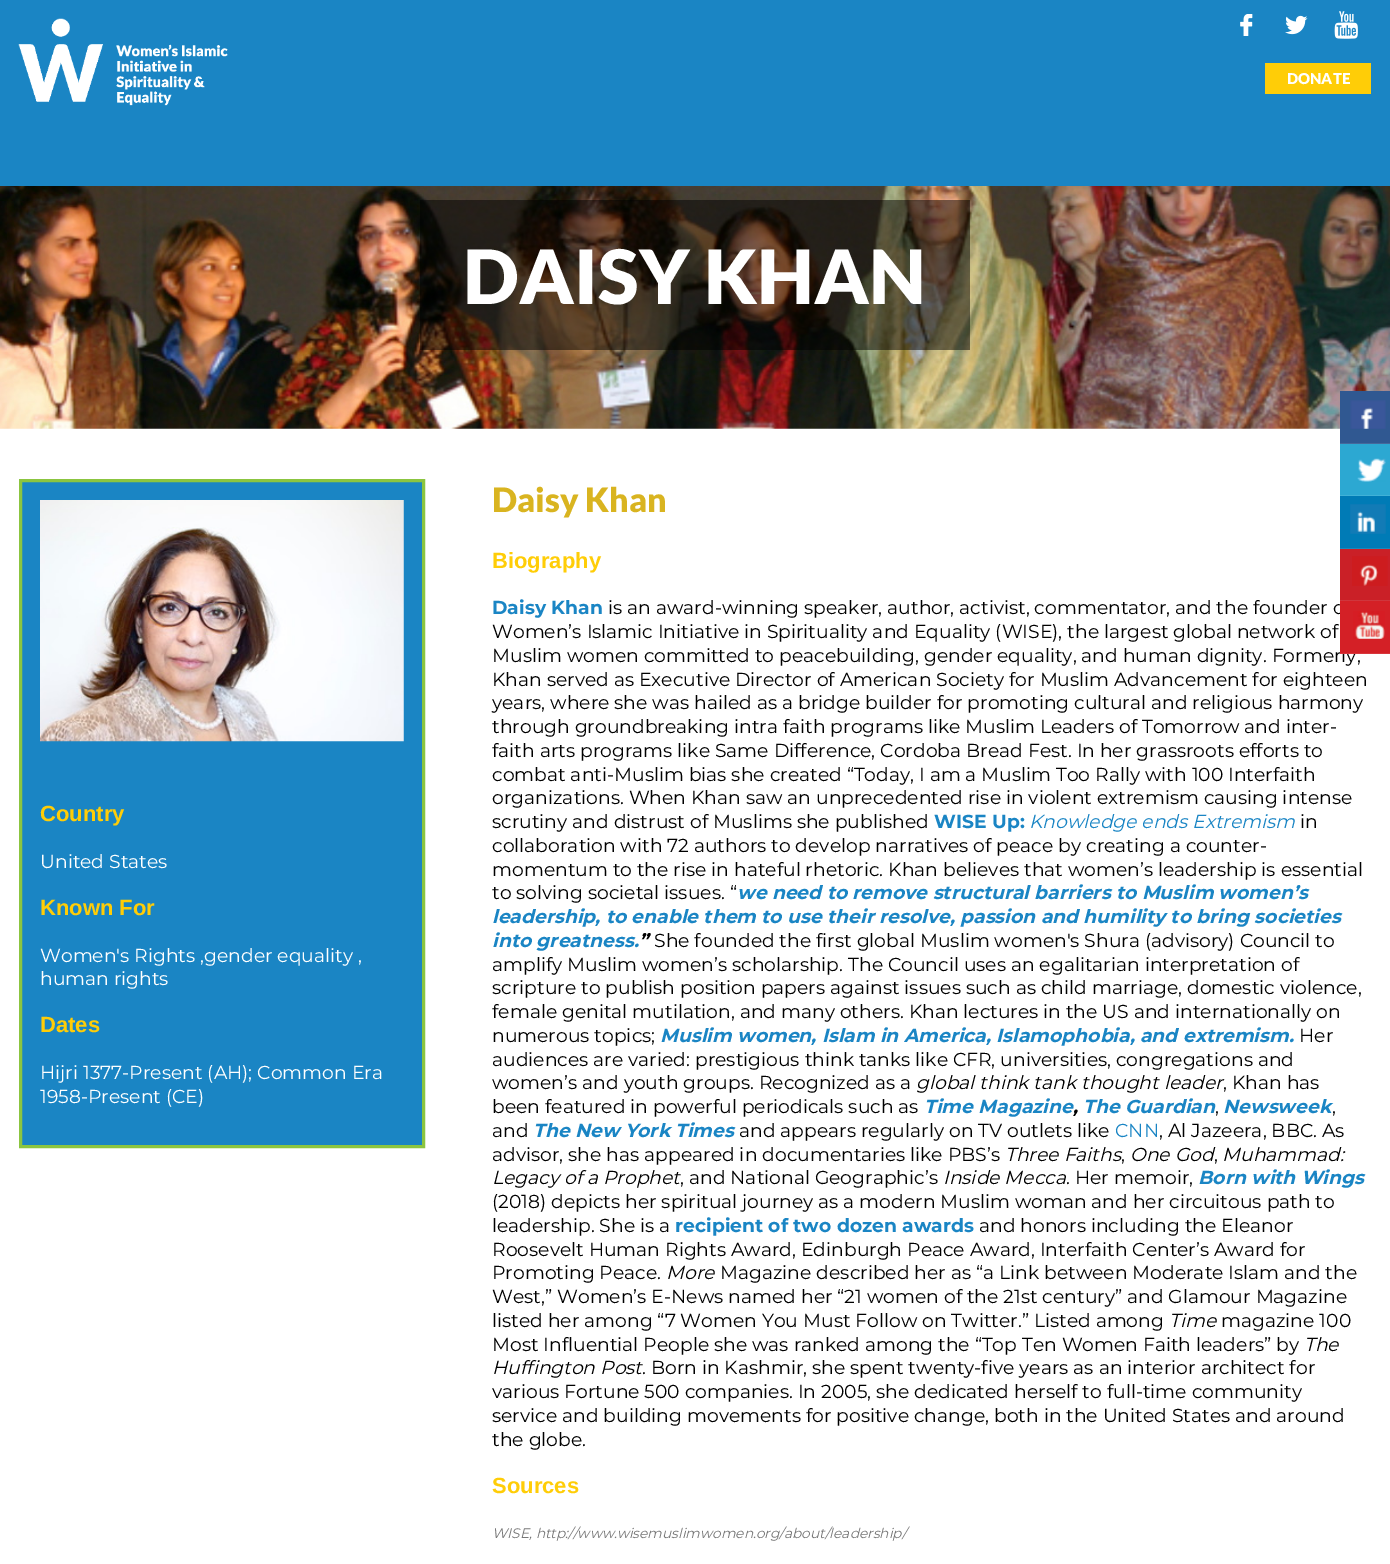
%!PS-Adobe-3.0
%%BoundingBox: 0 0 1390 1564
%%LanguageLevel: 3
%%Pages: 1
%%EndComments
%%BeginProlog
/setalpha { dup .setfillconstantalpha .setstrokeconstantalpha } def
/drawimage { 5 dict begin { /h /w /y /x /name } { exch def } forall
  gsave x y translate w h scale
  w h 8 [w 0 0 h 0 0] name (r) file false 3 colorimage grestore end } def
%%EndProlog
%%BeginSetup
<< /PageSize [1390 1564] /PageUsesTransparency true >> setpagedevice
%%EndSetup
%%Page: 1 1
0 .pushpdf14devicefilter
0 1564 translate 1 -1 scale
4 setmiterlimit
1 setgray
0 0 1390 1564 rectfill
0.102 0.522 0.769 setrgbcolor
0 0 1390 186 rectfill
(images/1.raw) 18 18 210 88 drawimage
(images/2.raw) 1240 14 13 22 drawimage
(images/3.raw) 1285 15 23 20 drawimage
(images/4.raw) 1334 11 24 28 drawimage
1 0.804 0.027 setrgbcolor
1265 63 106 31 rectfill
(images/5.raw) 0 186 1390 243 drawimage
0.5 setalpha
0 setgray
420 200 550 150 rectfill
1 setalpha
0.188 0.345 0.569 setrgbcolor
1340 391 50 52 rectfill
0.271 0.412 0.612 setrgbcolor
1340 443 50 1 rectfill
(images/6.raw) 1350 400 36 29 drawimage
0.173 0.659 0.824 setrgbcolor
1340 444 50 51 rectfill
0.255 0.694 0.843 setrgbcolor
1340 495 50 1 rectfill
(images/7.raw) 1357 458 29 24 drawimage
0 0.482 0.714 setrgbcolor
1340 496 50 52 rectfill
0.102 0.533 0.741 setrgbcolor
1340 548 50 1 rectfill
(images/8.raw) 1350 504 36 30 drawimage
0.792 0.125 0.153 setrgbcolor
1340 549 50 51 rectfill
(images/9.raw) 1352 556 36 30 drawimage
0.102 0.522 0.769 setrgbcolor
newpath 20.5 480.5 moveto 423.5 480.5 lineto 423.5 1146.5 lineto 20.5 1146.5 lineto closepath gsave fill grestore
0.545 0.773 0.251 setrgbcolor
3 setlinewidth
stroke
(images/11.raw) 40 500 364 242 drawimage
/Lato-Black [15 0 0 -15 0 0] selectfont
1 setgray
1287 84 moveto (DONATE) show
/Lato-Black [75 0 0 -75 0 0] selectfont
463 304 moveto (DAISY KHAN) show
/LiberationSans-Bold [22 0 0 -22 0 0] selectfont
1 0.804 0.027 setrgbcolor
40 821 moveto (Country) show
/Montserrat-Regular [18.75 0 0 -18.75 0 0] selectfont
1 setgray
40 868 moveto (United States) show
/LiberationSans-Bold [22 0 0 -22 0 0] selectfont
1 0.804 0.027 setrgbcolor
40 915 moveto (Known For) show
/Montserrat-Regular [18.75 0 0 -18.75 0 0] selectfont
1 setgray
40 962 moveto (Women's Rights ,gender equality ,) show
40 985 moveto (human rights) show
/LiberationSans-Bold [22 0 0 -22 0 0] selectfont
1 0.804 0.027 setrgbcolor
40 1032 moveto (Dates) show
/Montserrat-Regular [18.75 0 0 -18.75 0 0] selectfont
1 setgray
40 1079 moveto (Hijri 1377-Present \(AH\); Common Era) show
40 1103 moveto (1958-Present \(CE\)) show
/Lato-Black [33.75 0 0 -33.75 0 0] selectfont
0.851 0.706 0.125 setrgbcolor
492 512 moveto (Daisy Khan) show
/LiberationSans-Bold [22 0 0 -22 0 0] selectfont
1 0.804 0.027 setrgbcolor
492 568 moveto (Biography) show
/Montserrat-Bold [18.75 0 0 -18.75 0 0] selectfont
0.102 0.522 0.769 setrgbcolor
492 614 moveto (Daisy Khan) show
/Montserrat-Regular [18.75 0 0 -18.75 0 0] selectfont
0 setgray
608 614 moveto (is an award-winning speaker, author, activist, commentator, and the founder o) show
0.812 0.212 0.239 setrgbcolor
1340 600 50 1 rectfill
0 setgray
492 638 moveto (Women’s Islamic Initiative in Spirituality and Equality \(WISE\), the largest global network of) show
492 662 moveto (Muslim women committed to peacebuilding, gender equality, and human dignity. Formerly,) show
0.831 0.125 0.149 setrgbcolor
1340 601 50 52 rectfill
(images/10.raw) 1353 611 32 28 drawimage
0.847 0.212 0.235 setrgbcolor
1340 653 50 1 rectfill
0 setgray
492 686 moveto (Khan served as Executive Director of American Society for Muslim Advancement for eighteen) show
492 709 moveto (years, where she was hailed as a bridge builder for promoting cultural and religious harmony) show
492 733 moveto (through groundbreaking intra faith programs like Muslim Leaders of Tomorrow and inter-) show
492 757 moveto (faith arts programs like Same Difference, Cordoba Bread Fest. In her grassroots efforts to) show
492 781 moveto (combat anti-Muslim bias she created “Today, I am a Muslim Too Rally with 100 Interfaith) show
492 804 moveto (organizations. When Khan saw an unprecedented rise in violent extremism causing intense) show
492 828 moveto (scrutiny and distrust of Muslims she published) show
/Montserrat-Bold [18.75 0 0 -18.75 0 0] selectfont
0.102 0.522 0.769 setrgbcolor
934 828 moveto (WISE Up:) show
/Montserrat-Italic [18.75 0 0 -18.75 0 0] selectfont
1029 828 moveto (Knowledge ends Extremism) show
/Montserrat-Regular [18.75 0 0 -18.75 0 0] selectfont
0 setgray
1300 828 moveto (in) show
492 852 moveto (collaboration with 72 authors to develop narratives of peace by creating a counter-) show
492 876 moveto (momentum to the rise in hateful rhetoric. Khan believes that women’s leadership is essential) show
492 899 moveto (to solving societal issues. “) show
/Montserrat-BoldItalic [18.75 0 0 -18.75 0 0] selectfont
0.102 0.522 0.769 setrgbcolor
737 899 moveto (we need to remove structural barriers to Muslim women’s) show
492 923 moveto (leadership, to enable them to use their resolve, passion and humility to bring societies) show
492 947 moveto (into greatness.) show
0 setgray
639 947 moveto (”) show
/Montserrat-Regular [18.75 0 0 -18.75 0 0] selectfont
654 947 moveto (She founded the first global Muslim women's Shura \(advisory\) Council to) show
492 971 moveto (amplify Muslim women’s scholarship. The Council uses an egalitarian interpretation of) show
492 994 moveto (scripture to publish position papers against issues such as child marriage, domestic violence,) show
492 1018 moveto (female genital mutilation, and many others. Khan lectures in the US and internationally on) show
492 1042 moveto (numerous topics;) show
/Montserrat-BoldItalic [18.75 0 0 -18.75 0 0] selectfont
0.102 0.522 0.769 setrgbcolor
660 1042 moveto (Muslim women, Islam in America, Islamophobia, and extremism.) show
/Montserrat-Regular [18.75 0 0 -18.75 0 0] selectfont
0 setgray
1299 1042 moveto (Her) show
492 1066 moveto (audiences are varied: prestigious think tanks like CFR, universities, congregations and) show
492 1089 moveto (women’s and youth groups. Recognized as a) show
/Montserrat-Italic [18.75 0 0 -18.75 0 0] selectfont
916 1089 moveto (global think tank thought leader) show
/Montserrat-Regular [18.75 0 0 -18.75 0 0] selectfont
1223 1089 moveto (, Khan has) show
492 1113 moveto (been featured in powerful periodicals such as) show
/Montserrat-BoldItalic [18.75 0 0 -18.75 0 0] selectfont
0.102 0.522 0.769 setrgbcolor
924 1113 moveto (Time Magazine) show
0 setgray
1073 1113 moveto (,) show
0.102 0.522 0.769 setrgbcolor
1083 1113 moveto (The Guardian) show
/Montserrat-Regular [18.75 0 0 -18.75 0 0] selectfont
0 setgray
1215 1113 moveto (,) show
/Montserrat-BoldItalic [18.75 0 0 -18.75 0 0] selectfont
0.102 0.522 0.769 setrgbcolor
1223 1113 moveto (Newsweek) show
/Montserrat-Regular [18.75 0 0 -18.75 0 0] selectfont
0 setgray
1332 1113 moveto (,) show
492 1137 moveto (and) show
/Montserrat-BoldItalic [18.75 0 0 -18.75 0 0] selectfont
0.102 0.522 0.769 setrgbcolor
533 1137 moveto (The New York Times) show
/Montserrat-Regular [18.75 0 0 -18.75 0 0] selectfont
0 setgray
739 1137 moveto (and appears regularly on TV outlets like) show
0.102 0.522 0.769 setrgbcolor
1115 1137 moveto (CNN) show
0 setgray
1159 1137 moveto (, Al Jazeera, BBC. As) show
492 1161 moveto (advisor, she has appeared in documentaries like PBS’s) show
/Montserrat-Italic [18.75 0 0 -18.75 0 0] selectfont
1005 1161 moveto (Three Faiths) show
/Montserrat-Regular [18.75 0 0 -18.75 0 0] selectfont
1121 1161 moveto (,) show
/Montserrat-Italic [18.75 0 0 -18.75 0 0] selectfont
1130 1161 moveto (One God) show
1222 1161 moveto (Muhammad:) show
/Montserrat-Regular [18.75 0 0 -18.75 0 0] selectfont
1214 1161 moveto (,) show
/Montserrat-Italic [18.75 0 0 -18.75 0 0] selectfont
492 1184 moveto (Legacy of a Prophet) show
/Montserrat-Regular [18.75 0 0 -18.75 0 0] selectfont
680 1184 moveto (, and National Geographic’s) show
/Montserrat-Italic [18.75 0 0 -18.75 0 0] selectfont
943 1184 moveto (Inside Mecca) show
/Montserrat-Regular [18.75 0 0 -18.75 0 0] selectfont
1066 1184 moveto (. Her memoir,) show
/Montserrat-BoldItalic [18.75 0 0 -18.75 0 0] selectfont
0.102 0.522 0.769 setrgbcolor
1198 1184 moveto (Born with Wings) show
/Montserrat-Regular [18.75 0 0 -18.75 0 0] selectfont
0 setgray
492 1208 moveto (\(2018\) depicts her spiritual journey as a modern Muslim woman and her circuitous path to) show
492 1232 moveto (leadership. She is a) show
/Montserrat-Bold [18.75 0 0 -18.75 0 0] selectfont
0.102 0.522 0.769 setrgbcolor
675 1232 moveto (recipient of two dozen awards) show
/Montserrat-Regular [18.75 0 0 -18.75 0 0] selectfont
0 setgray
979 1232 moveto (and honors including the Eleanor) show
492 1256 moveto (Roosevelt Human Rights Award, Edinburgh Peace Award, Interfaith Center’s Award for) show
492 1279 moveto (Promoting Peace.) show
/Montserrat-Italic [18.75 0 0 -18.75 0 0] selectfont
666 1279 moveto (More) show
/Montserrat-Regular [18.75 0 0 -18.75 0 0] selectfont
720 1279 moveto (Magazine described her as “a Link between Moderate Islam and the) show
492 1303 moveto (West,” Women’s E-News named her “21 women of the 21st century” and Glamour Magazine) show
492 1327 moveto (listed her among “7 Women You Must Follow on Twitter.” Listed among) show
/Montserrat-Italic [18.75 0 0 -18.75 0 0] selectfont
1169 1327 moveto (Time) show
/Montserrat-Regular [18.75 0 0 -18.75 0 0] selectfont
1221 1327 moveto (magazine 100) show
492 1351 moveto (Most Influential People she was ranked among the “Top Ten Women Faith leaders” by) show
/Montserrat-Italic [18.75 0 0 -18.75 0 0] selectfont
1304 1351 moveto (The) show
492 1374 moveto (Huffington Post) show
/Montserrat-Regular [18.75 0 0 -18.75 0 0] selectfont
642 1374 moveto (. Born in Kashmir, she spent twenty-five years as an interior architect for) show
492 1398 moveto (various Fortune 500 companies. In 2005, she dedicated herself to full-time community) show
492 1422 moveto (service and building movements for positive change, both in the United States and around) show
492 1446 moveto (the globe.) show
/LiberationSans-Bold [22 0 0 -22 0 0] selectfont
1 0.804 0.027 setrgbcolor
492 1493 moveto (Sources) show
/Montserrat-Italic [13.75 0 0 -13.75 0 0] selectfont
0.467 setgray
492 1538 moveto (WISE, http://www.wisemuslimwomen.org/about/leadership/) show
.poppdf14devicefilter showpage
%%EOF
